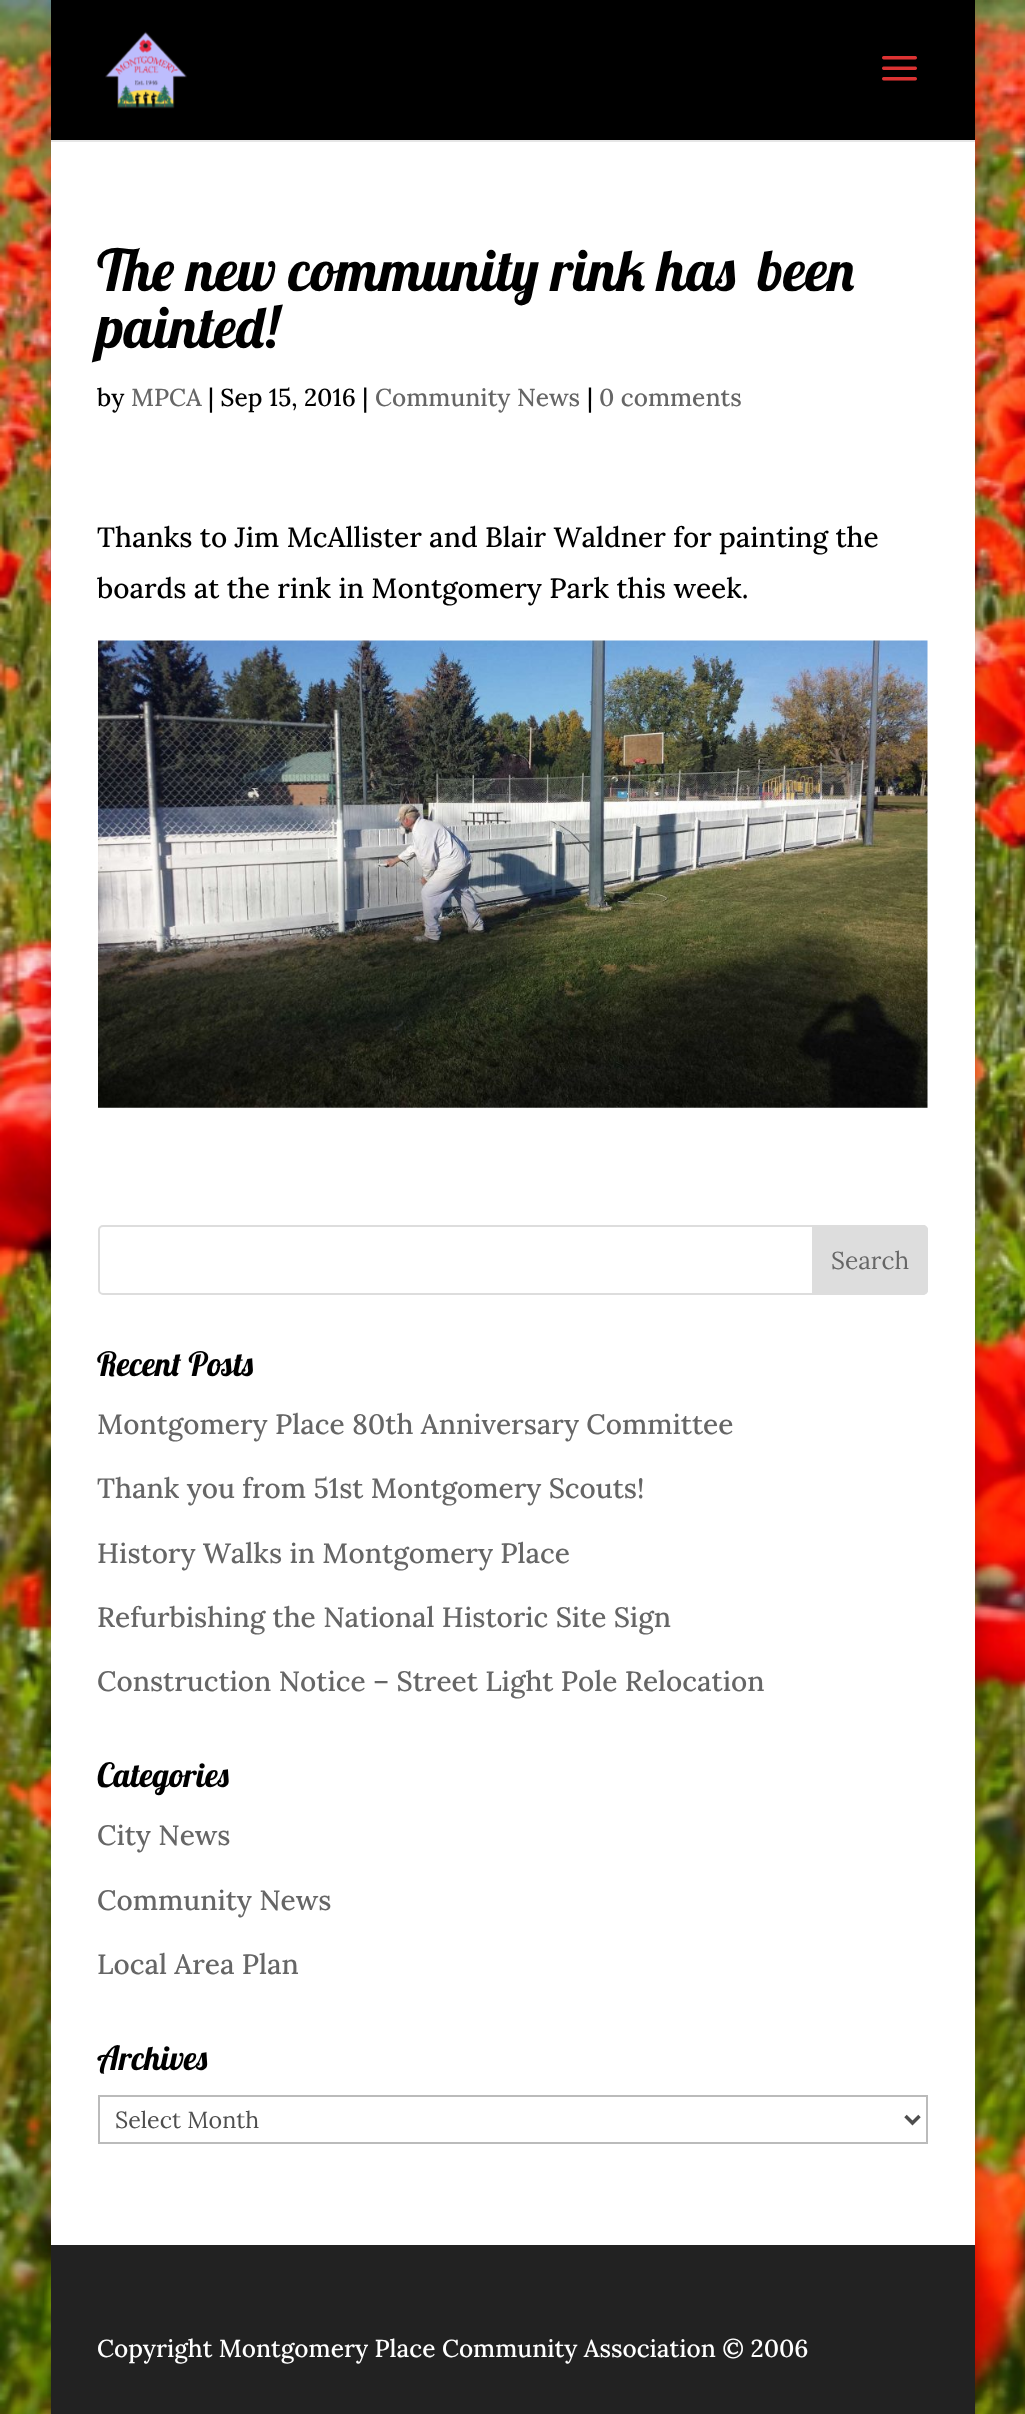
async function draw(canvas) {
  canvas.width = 1025;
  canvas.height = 2414;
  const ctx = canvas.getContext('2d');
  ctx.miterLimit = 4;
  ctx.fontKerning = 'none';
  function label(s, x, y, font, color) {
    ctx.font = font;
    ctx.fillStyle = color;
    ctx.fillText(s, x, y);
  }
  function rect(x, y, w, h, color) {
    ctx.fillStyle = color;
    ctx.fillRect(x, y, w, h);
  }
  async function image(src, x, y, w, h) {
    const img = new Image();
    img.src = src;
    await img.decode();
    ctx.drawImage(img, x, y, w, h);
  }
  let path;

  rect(0, 0, 1025, 2414, '#fff');
  await image('assets/img1.png', 0, 0, 1025, 2414);
  ctx.fillStyle = '#00000033';
  ctx.filter = 'blur(9px)';
  ctx.beginPath();
  ctx.rect(51, 0, 924, 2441);
  ctx.fill();
  ctx.filter = 'none';
  ctx.fillStyle = '#e6e6e6';
  path = new Path2D('M51 140V142H975V2V140Z');
  ctx.fill(path);
  rect(51, 0, 924, 140, '#000');
  await image('assets/img2.png', 105, 31, 82, 78);
  await image('assets/img3.png', 882, 56, 35, 25);
  rect(51, 142, 924, 2103, '#fff');
  label('The new community rink has', 97, 291, '57.75px Lobster', '#000');
  label('been', 758, 291, '57.75px Lobster', '#000');
  label('painted!', 97, 348, '57.75px Lobster', '#000');
  label('by', 97, 406, '500 24.5px Lora', '#000');
  label('MPCA', 131, 406, '500 24.5px Lora', '#666');
  label('| Sep 15, 2016 |', 208, 406, '500 24.5px Lora', '#000');
  label('Community News', 375, 406, '500 24.5px Lora', '#666');
  label('|', 587, 406, '500 24.5px Lora', '#000');
  label('0 comments', 599, 406, '500 24.5px Lora', '#666');
  label('Thanks to Jim McAllister and Blair Waldner for painting the', 97, 547, '500 28px Lora', '#000');
  label('boards at the rink in Montgomery Park this week.', 97, 598, '500 28px Lora', '#000');
  await image('assets/img4.png', 98, 640, 830, 468);
  ctx.beginPath();
  ctx.roundRect(99, 1226, 828, 68, 4);
  ctx.strokeStyle = '#ddd';
  ctx.lineWidth = 2;
  ctx.stroke();
  ctx.fillStyle = '#ddd';
  ctx.beginPath();
  ctx.roundRect(813, 1226, 114, 68, [0, 4, 4, 0]);
  ctx.fill();
  ctx.stroke();
  label('Search', 831, 1269, '24.5px Lora', '#666');
  label('Recent Posts', 97, 1376, '33.25px Lobster', '#000');
  label('Montgomery Place 80th Anniversary Committee', 97, 1434, '500 28px Lora', '#666');
  label('Thank you from 51st Montgomery Scouts!', 97, 1498, '500 28px Lora', '#666');
  label('History Walks in Montgomery Place', 97, 1563, '500 28px Lora', '#666');
  label('Refurbishing the National Historic Site Sign', 97, 1627, '500 28px Lora', '#666');
  label('Construction Notice – Street Light Pole Relocation', 97, 1691, '500 28px Lora', '#666');
  label('Categories', 97, 1787, '33.25px Lobster', '#000');
  label('City News', 97, 1845, '500 28px Lora', '#666');
  label('Community News', 97, 1910, '500 28px Lora', '#666');
  label('Local Area Plan', 97, 1974, '500 28px Lora', '#666');
  label('Archives', 97, 2070, '33.25px Lobster', '#000');
  ctx.strokeStyle = '#bbb';
  ctx.strokeRect(99, 2096, 828, 47);
  path = new Path2D('M905.5 2116L912.5 2123L919.5 2116');
  ctx.strokeStyle = '#4e4e4e';
  ctx.lineWidth = 3.5;
  ctx.stroke(path);
  label('Select Month', 115, 2128, '23.25px Lora', '#4e4e4e');
  rect(51, 2245, 924, 169, '#222');
  label('Copyright Montgomery Place Community Association © 2006', 97, 2357, '500 24.5px Lora', '#fff');
}

draw(document.querySelector('canvas'));
